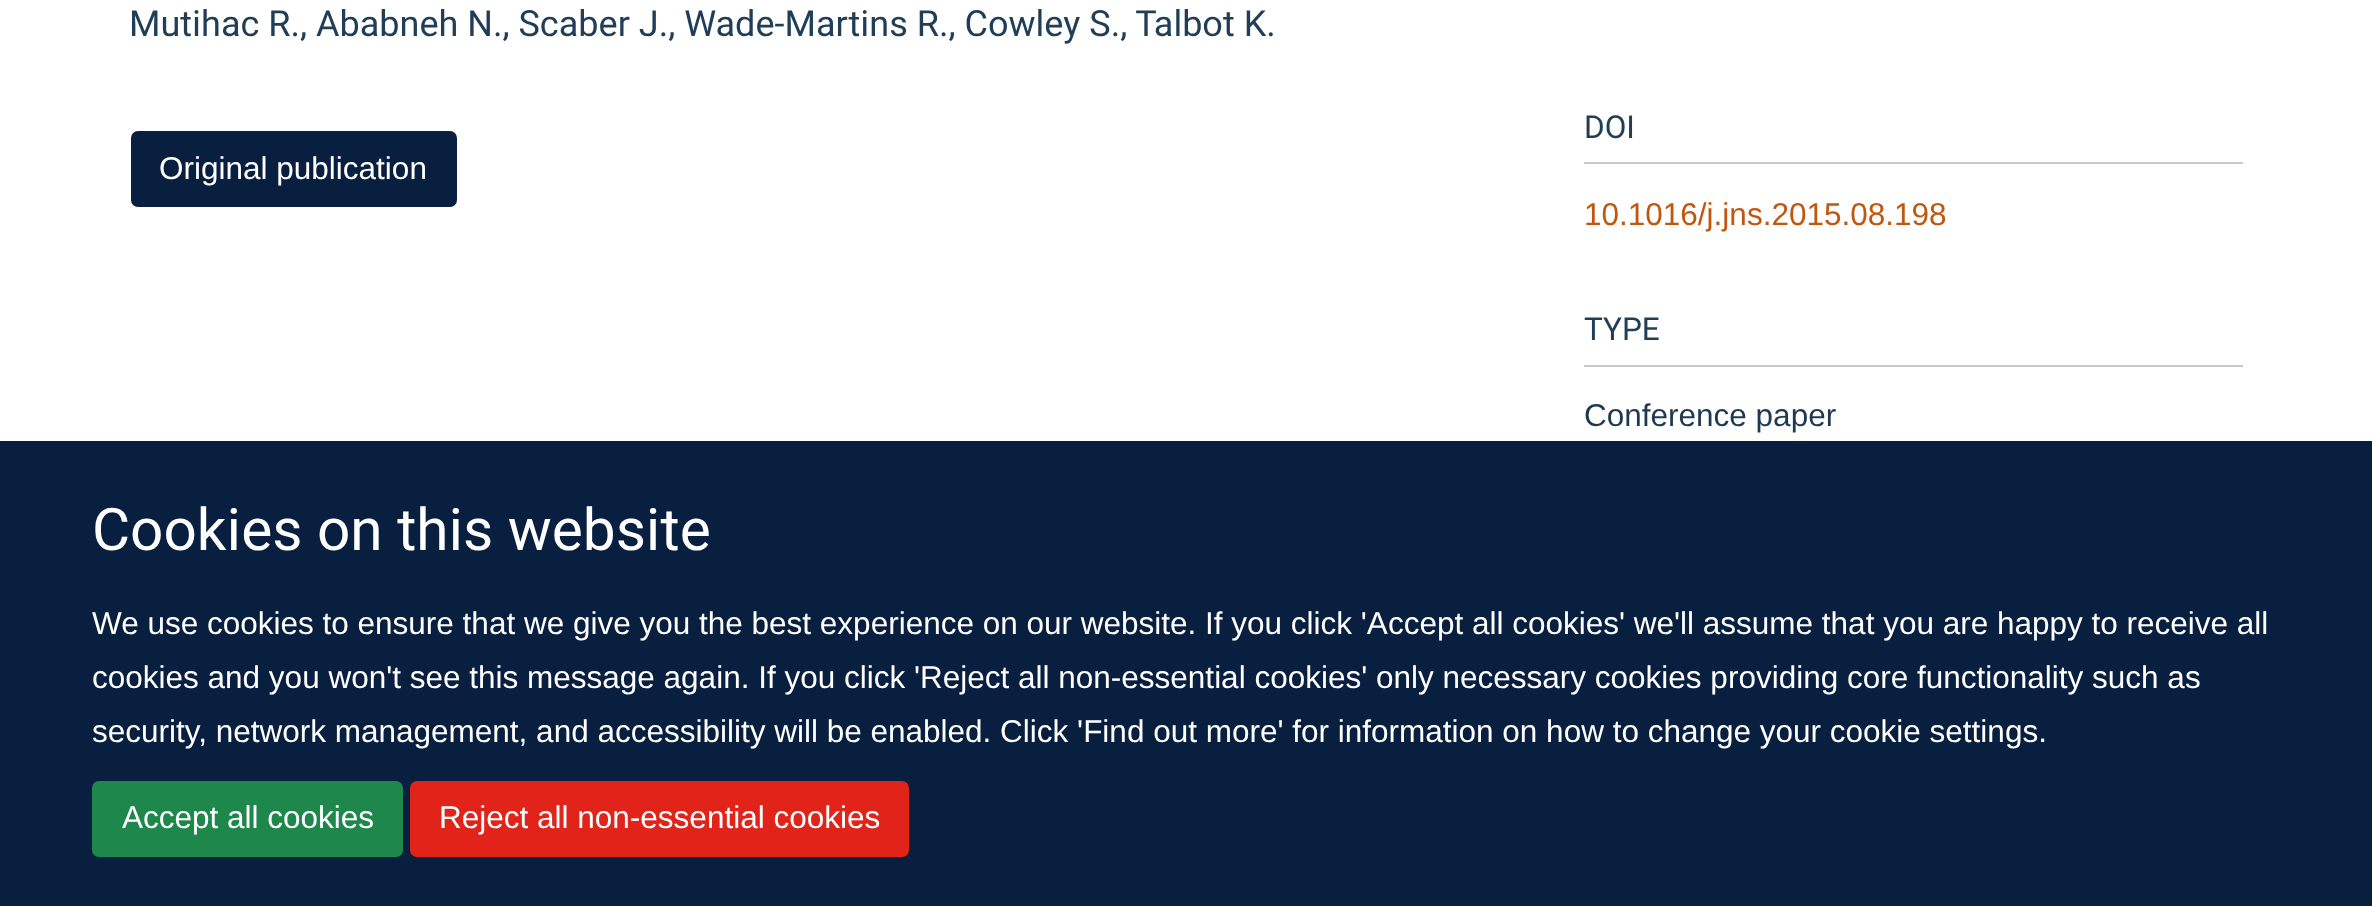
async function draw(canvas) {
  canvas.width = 2372;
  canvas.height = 906;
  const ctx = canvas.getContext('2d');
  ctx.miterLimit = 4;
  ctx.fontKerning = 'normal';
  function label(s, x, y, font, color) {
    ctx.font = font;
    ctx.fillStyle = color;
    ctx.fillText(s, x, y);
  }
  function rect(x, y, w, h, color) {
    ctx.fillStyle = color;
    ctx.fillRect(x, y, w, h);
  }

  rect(0, 0, 2372, 906, '#fff');
  label('Mutihac R., Ababneh N., Scaber J., Wade-Martins R., Cowley S., Talbot K.', 129, 36, '36px Heebo', '#203e58');
  ctx.fillStyle = '#091f40';
  ctx.beginPath();
  ctx.roundRect(132, 132, 324, 74, 6);
  ctx.fill();
  ctx.strokeStyle = '#091f40';
  ctx.lineWidth = 2;
  ctx.stroke();
  label('Original publication', 159, 179, '31.5px Liberation Sans', '#fff');
  rect(1584, 162, 659, 2, '#c6cacf');
  label('DOI', 1584, 138, '31.5px Heebo', '#203e58');
  label('10.1016/j.jns.2015.08.198', 1584, 225, '31.5px Liberation Sans', '#c1570e');
  rect(1584, 365, 659, 2, '#c6cacf');
  label('TYPE', 1584, 340, '31.5px Heebo', '#203e58');
  label('Conference paper', 1584, 426, '31.5px Liberation Sans', '#1d3850');
  rect(0, 441, 2372, 465, '#091f40');
  label('Cookies on this website', 92, 550, '58.5px Heebo', '#fff');
  label('We use cookies to ensure that we give you the best experience on our website. If you click \'Accept all cookies\' we\'ll assume that you are happy to receive all', 92, 634, '31.5px Liberation Sans', '#fff');
  label('cookies and you won\'t see this message again. If you click \'Reject all non-essential cookies\' only necessary cookies providing core functionality such as', 92, 688, '31.5px Liberation Sans', '#fff');
  label('security, network management, and accessibility will be enabled. Click \'Find out more\' for information on how to change your cookie settings.', 92, 742, '31.5px Liberation Sans', '#fff');
  ctx.fillStyle = '#1e874b';
  ctx.beginPath();
  ctx.roundRect(93, 782, 309, 74, 6);
  ctx.fill();
  ctx.strokeStyle = '#1e874b';
  ctx.stroke();
  label('Accept all cookies', 122, 828, '31.5px Liberation Sans', '#fff');
  ctx.fillStyle = '#e2231a';
  ctx.beginPath();
  ctx.roundRect(411, 782, 497, 74, 6);
  ctx.fill();
  ctx.strokeStyle = '#e2231a';
  ctx.stroke();
  label('Reject all non-essential cookies', 439, 828, '31.5px Liberation Sans', '#fff');
}

draw(document.querySelector('canvas'));
